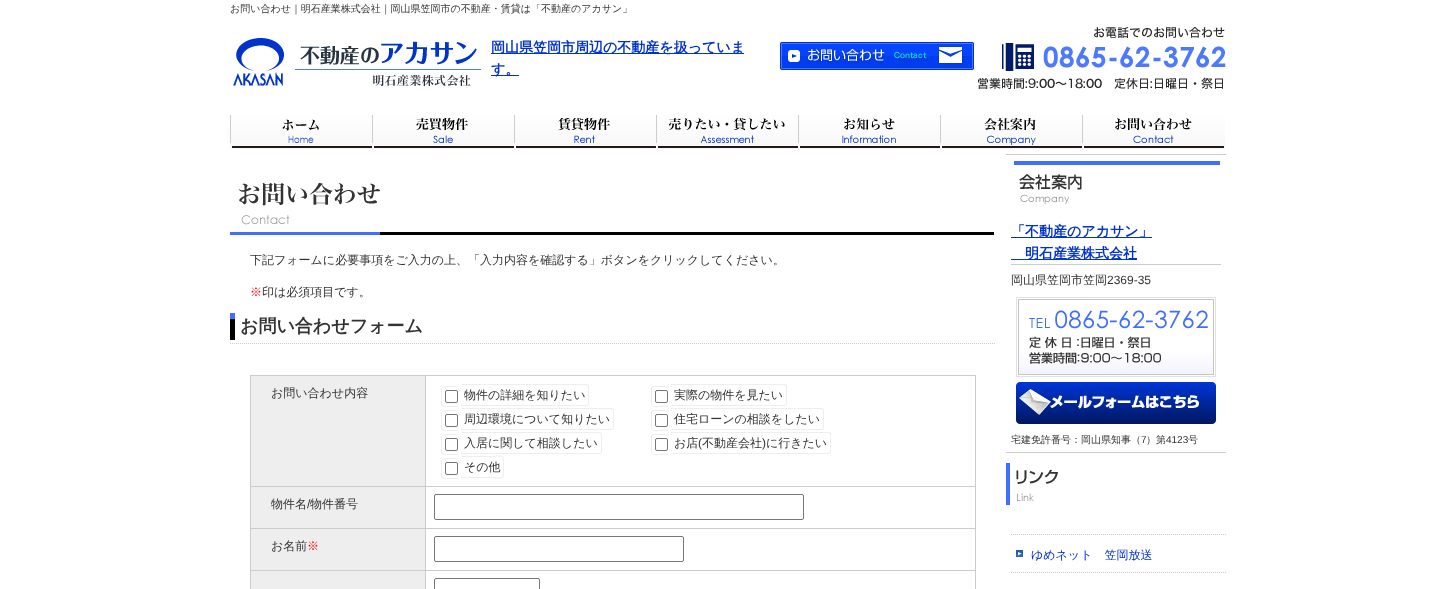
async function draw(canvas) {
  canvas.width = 1455;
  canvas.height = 589;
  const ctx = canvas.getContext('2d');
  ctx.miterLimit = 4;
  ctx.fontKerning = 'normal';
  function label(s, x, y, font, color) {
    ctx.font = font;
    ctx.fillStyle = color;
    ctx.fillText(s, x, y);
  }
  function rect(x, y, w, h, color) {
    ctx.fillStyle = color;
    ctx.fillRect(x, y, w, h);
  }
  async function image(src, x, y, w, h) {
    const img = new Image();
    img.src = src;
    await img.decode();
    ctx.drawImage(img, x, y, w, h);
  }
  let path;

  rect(0, 0, 1455, 589, '#fff');
  label('お問い合わせ｜明石産業株式会社｜岡山県笠岡市の不動産・賃貸は「不動産のアカサン」', 230, 12, '500 10px WenQuanYi Zen Hei', '#333');
  await image('assets/img1.png', 233, 38, 248, 48);
  rect(491, 53, 253, 1, '#03c');
  label('岡山県笠岡市周辺の不動産を扱っていま', 491, 52, 'bold 14px WenQuanYi Zen Hei', '#03c');
  rect(491, 75, 28, 1, '#03c');
  label('す。', 491, 74, 'bold 14px WenQuanYi Zen Hei', '#03c');
  await image('assets/img2.png', 780, 42, 194, 28);
  await image('assets/img3.png', 978, 27, 248, 62);
  await image('assets/img4.png', 230, 115, 142, 34);
  await image('assets/img5.png', 372, 115, 142, 34);
  await image('assets/img6.png', 514, 115, 142, 34);
  await image('assets/img7.png', 656, 115, 142, 34);
  await image('assets/img8.png', 798, 115, 142, 34);
  await image('assets/img9.png', 940, 115, 142, 34);
  await image('assets/img10.png', 1082, 115, 143, 34);
  await image('assets/img11.png', 230, 182, 764, 53);
  label('下記フォームに必要事項をご入力の上、「入力内容を確認する」ボタンをクリックしてください。', 250, 264, '500 12px WenQuanYi Zen Hei', '#333');
  label('※', 250, 296, '500 12px WenQuanYi Zen Hei', '#f00');
  label('印は必須項目です。', 262, 296, '500 12px WenQuanYi Zen Hei', '#333');
  path = new Path2D('M230 343.5H996');
  ctx.strokeStyle = '#ccc';
  ctx.setLineDash([1, 1]);
  ctx.stroke(path);
  await image('assets/img12.png', 230, 313, 5, 27);
  label('お問い合わせフォーム', 240, 332, 'bold 18px WenQuanYi Zen Hei', '#333');
  rect(250, 375, 726, 1, '#ccc');
  rect(975, 375, 1, 214, '#ccc');
  rect(251, 376, 174, 110, '#eee');
  rect(425, 570, 1, 19, '#ccc');
  rect(425, 570, 551, 1, '#ccc');
  rect(425, 528, 1, 43, '#ccc');
  rect(425, 528, 551, 1, '#ccc');
  rect(425, 486, 1, 43, '#ccc');
  rect(425, 486, 551, 1, '#ccc');
  rect(425, 375, 1, 112, '#ccc');
  rect(250, 570, 1, 19, '#ccc');
  rect(250, 570, 176, 1, '#ccc');
  rect(250, 528, 1, 43, '#ccc');
  rect(250, 528, 176, 1, '#ccc');
  rect(250, 486, 1, 43, '#ccc');
  rect(250, 486, 176, 1, '#ccc');
  rect(250, 375, 1, 112, '#ccc');
  label('お問い合わせ内容', 271, 397, '500 12px WenQuanYi Zen Hei', '#333');
  ctx.fillStyle = '#eee';
  path = new Path2D('M444 386H458V407H444C442.5 407 441 405.5 441 404V389C441 387.5 442.5 386 444 386ZM444 387H458V406H444C443 406 442 405 442 404V389C442 388 443 387 444 387Z');
  ctx.fill(path, 'evenodd');
  path = new Path2D('M461 384H586C588 384 589 385 589 387V403C589 405 588 406 586 406H461ZM461 385H586C587 385 588 386 588 387V403C588 404 587 405 586 405H461Z');
  ctx.fill(path, 'evenodd');
  ctx.beginPath();
  ctx.roundRect(445.5, 390.5, 12, 12, 1.5);
  ctx.strokeStyle = '#767676';
  ctx.setLineDash([]);
  ctx.stroke();
  label('物件の詳細を知りたい', 464, 399, '500 12px WenQuanYi Zen Hei', '#333');
  ctx.fillStyle = '#eee';
  path = new Path2D('M654 386H668V407H654C652.5 407 651 405.5 651 404V389C651 387.5 652.5 386 654 386ZM654 387H668V406H654C653 406 652 405 652 404V389C652 388 653 387 654 387Z');
  ctx.fill(path, 'evenodd');
  path = new Path2D('M671 384H784C786 384 787 385 787 387V403C787 405 786 406 784 406H671ZM671 385H784C785 385 786 386 786 387V403C786 404 785 405 784 405H671Z');
  ctx.fill(path, 'evenodd');
  ctx.beginPath();
  ctx.roundRect(655.5, 390.5, 12, 12, 1.5);
  ctx.stroke();
  label('実際の物件を見たい', 674, 399, '500 12px WenQuanYi Zen Hei', '#333');
  ctx.fillStyle = '#eee';
  path = new Path2D('M444 410H458V431H444C442.5 431 441 429.5 441 428V413C441 411.5 442.5 410 444 410ZM444 411H458V430H444C443 430 442 429 442 428V413C442 412 443 411 444 411Z');
  ctx.fill(path, 'evenodd');
  path = new Path2D('M461 408H611C613 408 614 409 614 411V427C614 429 613 430 611 430H461ZM461 409H611C612 409 613 410 613 411V427C613 428 612 429 611 429H461Z');
  ctx.fill(path, 'evenodd');
  ctx.beginPath();
  ctx.roundRect(445.5, 414.5, 12, 12, 1.5);
  ctx.stroke();
  label('周辺環境について知りたい', 464, 423, '500 12px WenQuanYi Zen Hei', '#333');
  ctx.fillStyle = '#eee';
  path = new Path2D('M654 410H668V431H654C652.5 431 651 429.5 651 428V413C651 411.5 652.5 410 654 410ZM654 411H668V430H654C653 430 652 429 652 428V413C652 412 653 411 654 411Z');
  ctx.fill(path, 'evenodd');
  path = new Path2D('M671 408H821C823 408 824 409 824 411V427C824 429 823 430 821 430H671ZM671 409H821C822 409 823 410 823 411V427C823 428 822 429 821 429H671Z');
  ctx.fill(path, 'evenodd');
  ctx.beginPath();
  ctx.roundRect(655.5, 414.5, 12, 12, 1.5);
  ctx.stroke();
  label('住宅ローンの相談をしたい', 674, 423, '500 12px WenQuanYi Zen Hei', '#333');
  ctx.fillStyle = '#eee';
  path = new Path2D('M444 434H458V455H444C442.5 455 441 453.5 441 452V437C441 435.5 442.5 434 444 434ZM444 435H458V454H444C443 454 442 453 442 452V437C442 436 443 435 444 435Z');
  ctx.fill(path, 'evenodd');
  path = new Path2D('M461 432H599C601 432 602 433 602 435V451C602 453 601 454 599 454H461ZM461 433H599C600 433 601 434 601 435V451C601 452 600 453 599 453H461Z');
  ctx.fill(path, 'evenodd');
  ctx.beginPath();
  ctx.roundRect(445.5, 438.5, 12, 12, 1.5);
  ctx.stroke();
  label('入居に関して相談したい', 464, 447, '500 12px WenQuanYi Zen Hei', '#333');
  ctx.fillStyle = '#eee';
  path = new Path2D('M654 434H668V455H654C652.5 455 651 453.5 651 452V437C651 435.5 652.5 434 654 434ZM654 435H668V454H654C653 454 652 453 652 452V437C652 436 653 435 654 435Z');
  ctx.fill(path, 'evenodd');
  path = new Path2D('M671 432H828C830 432 831 433 831 435V451C831 453 830 454 828 454H671ZM671 433H828C829 433 830 434 830 435V451C830 452 829 453 828 453H671Z');
  ctx.fill(path, 'evenodd');
  ctx.beginPath();
  ctx.roundRect(655.5, 438.5, 12, 12, 1.5);
  ctx.stroke();
  label('お店', 674, 447, '500 12px WenQuanYi Zen Hei', '#333');
  label('(', 698, 447, '12px Liberation Sans', '#333');
  label('不動産会社', 702, 447, '500 12px WenQuanYi Zen Hei', '#333');
  label(')', 762, 447, '12px Liberation Sans', '#333');
  label('に行きたい', 766, 447, '500 12px WenQuanYi Zen Hei', '#333');
  ctx.fillStyle = '#eee';
  path = new Path2D('M444 458H458V479H444C442.5 479 441 477.5 441 476V461C441 459.5 442.5 458 444 458ZM444 459H458V478H444C443 478 442 477 442 476V461C442 460 443 459 444 459ZM461 456H488C504 456 504 452 504 467C504 482 504 478 488 478H461ZM461 457H488C504 457 503 453 503 467C503 481 504 477 488 477H461Z');
  ctx.fill(path, 'evenodd');
  ctx.beginPath();
  ctx.roundRect(445.5, 462.5, 12, 12, 1.5);
  ctx.stroke();
  label('その他', 464, 471, '500 12px WenQuanYi Zen Hei', '#333');
  rect(251, 487, 174, 41, '#eee');
  label('物件名', 271, 508, '500 12px WenQuanYi Zen Hei', '#333');
  label('/', 307, 508, '12px Liberation Sans', '#333');
  label('物件番号', 310, 508, '500 12px WenQuanYi Zen Hei', '#333');
  ctx.beginPath();
  ctx.roundRect(434.5, 494.5, 369, 25, 1.5);
  ctx.stroke();
  rect(251, 529, 174, 41, '#eee');
  label('お名前', 271, 550, '500 12px WenQuanYi Zen Hei', '#333');
  label('※', 307, 550, '500 12px WenQuanYi Zen Hei', '#f00');
  ctx.beginPath();
  ctx.roundRect(434.5, 536.5, 249, 25, 1.5);
  ctx.stroke();
  rect(251, 571, 174, 18, '#eee');
  ctx.beginPath();
  ctx.roundRect(434.5, 578.5, 105, 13, 1.5);
  ctx.stroke();
  rect(1006, 154, 220, 1, '#ccc');
  rect(1006, 452, 220, 1, '#ccc');
  await image('assets/img13.png', 1014, 161, 206, 43);
  rect(1011, 264, 210, 1, '#ccc');
  rect(1011, 237, 141, 1, '#03c');
  label('「不動産のアカサン」', 1011, 236, 'bold 14px WenQuanYi Zen Hei', '#03c');
  rect(1011, 259, 126, 1, '#03c');
  label('明石産業株式会社', 1025, 258, 'bold 14px WenQuanYi Zen Hei', '#03c');
  label('岡山県笠岡市笠岡', 1011, 284, '500 12px WenQuanYi Zen Hei', '#333');
  label('2369-35', 1107, 284, '12px Liberation Sans', '#333');
  await image('assets/img14.png', 1016, 297, 200, 80);
  await image('assets/img15.png', 1016, 382, 200, 42);
  label('宅建免許番号：岡山県知事（', 1011, 443, '500 10px WenQuanYi Zen Hei', '#333');
  label('7', 1141, 443, '10px Liberation Sans', '#333');
  label('）第', 1146, 443, '500 10px WenQuanYi Zen Hei', '#333');
  label('4123', 1166, 443, '10px Liberation Sans', '#333');
  label('号', 1188, 443, '500 10px WenQuanYi Zen Hei', '#333');
  await image('assets/img16.png', 1006, 463, 52, 42);
  path = new Path2D('M1011 534.5H1226');
  ctx.strokeStyle = '#ccc';
  ctx.setLineDash([1, 1]);
  ctx.stroke(path);
  path = new Path2D('M1011 572.5H1226');
  ctx.stroke(path);
  await image('assets/img17.png', 1016, 550, 7, 7);
  label('ゆめネット　笠岡放送', 1031, 559, '500 12px WenQuanYi Zen Hei', '#03c');
}

draw(document.querySelector('canvas'));
